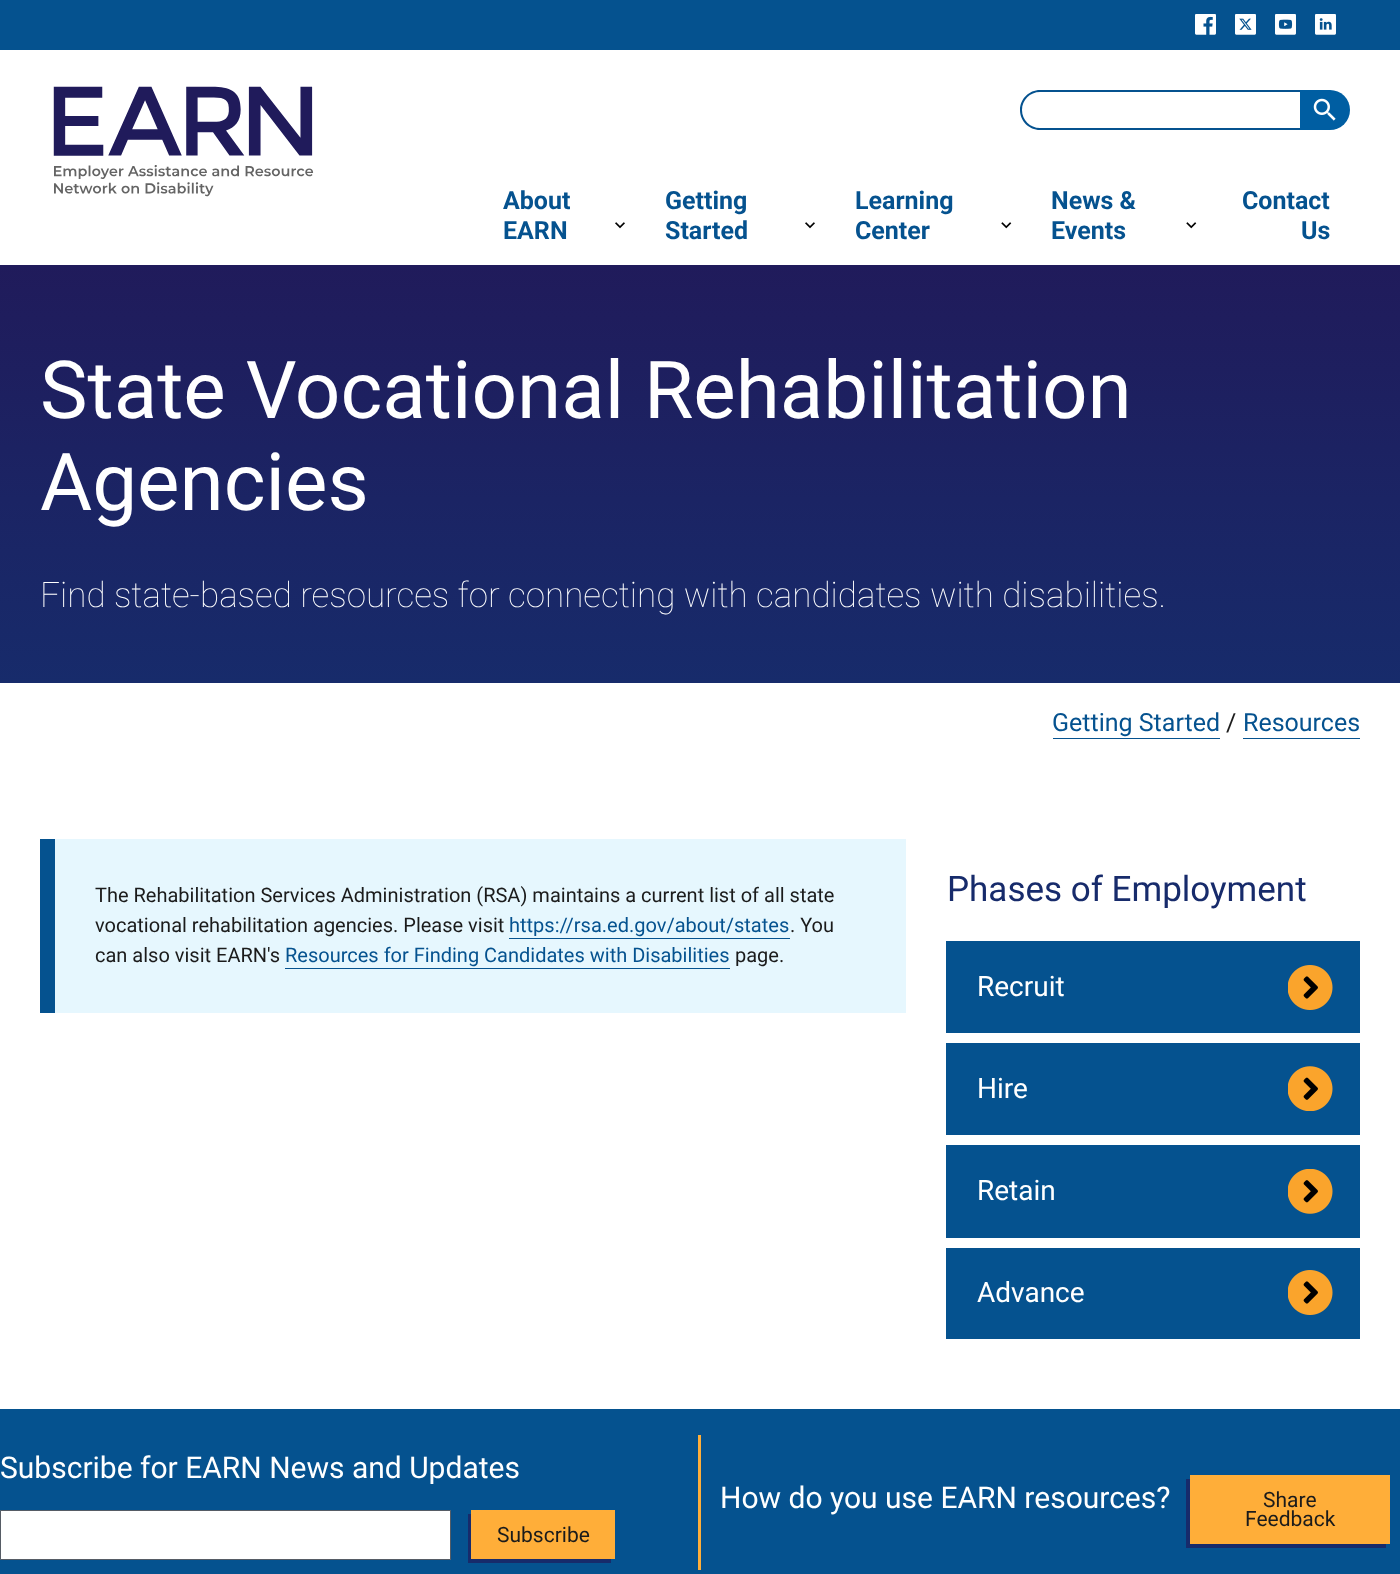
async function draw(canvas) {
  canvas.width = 1400;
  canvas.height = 1574;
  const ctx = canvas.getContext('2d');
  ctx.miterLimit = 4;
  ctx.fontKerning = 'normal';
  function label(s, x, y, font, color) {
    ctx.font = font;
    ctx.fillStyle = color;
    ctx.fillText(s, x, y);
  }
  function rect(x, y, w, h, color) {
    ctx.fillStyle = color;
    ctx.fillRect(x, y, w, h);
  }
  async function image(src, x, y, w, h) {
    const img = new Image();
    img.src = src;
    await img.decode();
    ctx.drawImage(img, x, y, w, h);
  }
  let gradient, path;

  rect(0, 0, 1400, 1574, '#fff');
  rect(0, 0, 1400, 50, '#05528f');
  await image('assets/img1.png', 1195, 14, 21, 21);
  await image('assets/img2.png', 1235, 14, 21, 21);
  await image('assets/img3.png', 1275, 14, 21, 21);
  await image('assets/img4.png', 1315, 14, 21, 21);
  await image('assets/img5.png', 53, 86, 261, 111);
  path = new Path2D('M1040 90H1300V130H1040C1029 130 1020 121 1020 110C1020 99 1029 90 1040 90ZM1040 92H1300V128H1040C1030 128 1022 120 1022 110C1022 100 1030 92 1040 92Z');
  ctx.fill(path, 'evenodd');
  ctx.fillStyle = '#005ea2';
  ctx.beginPath();
  ctx.roundRect(1300, 90, 50, 40, [0, 20, 20, 0]);
  ctx.fill();
  await image('assets/img6.png', 1313, 98, 23, 23);
  label('About', 503, 209, 'bold 25px Roboto', '#05528f');
  label('EARN', 503, 239, 'bold 25px Roboto', '#05528f');
  await image('assets/img7.png', 615, 222, 10, 7);
  label('Getting', 665, 209, 'bold 25px Roboto', '#05528f');
  label('Started', 665, 239, 'bold 25px Roboto', '#05528f');
  await image('assets/img7.png', 805, 222, 10, 7);
  label('Learning', 855, 209, 'bold 25px Roboto', '#05528f');
  label('Center', 855, 239, 'bold 25px Roboto', '#05528f');
  await image('assets/img8.png', 1001, 222, 11, 7);
  label('News &', 1051, 209, 'bold 25px Roboto', '#05528f');
  label('Events', 1051, 239, 'bold 25px Roboto', '#05528f');
  await image('assets/img8.png', 1186, 222, 11, 7);
  label('Contact', 1242, 209, 'bold 25px Roboto', '#05528f');
  label('Us', 1301, 239, 'bold 25px Roboto', '#05528f');
  gradient = ctx.createLinearGradient(700, 265, 700, 683);
  gradient.addColorStop(0, '#201b5b');
  gradient.addColorStop(1, '#172b6b');
  ctx.fillStyle = gradient;
  ctx.fillRect(0, 265, 1400, 418);
  label('State Vocational Rehabilitation', 40, 418, '80px Roboto', '#fff');
  label('Agencies', 40, 510, '80px Roboto', '#fff');
  label('Find state-based resources for connecting with candidates with disabilities.', 40, 607, '100 35px Roboto', '#fff');
  label('Getting Started', 1052, 731, '25px Roboto', '#05528f');
  rect(1053, 738, 167, 1, '#05528f');
  label('/', 1226, 731, '25px Roboto', '#1b1b1b');
  label('Resources', 1243, 731, '25px Roboto', '#05528f');
  rect(1243, 738, 117, 1, '#05528f');
  rect(55, 839, 851, 174, '#e6f7fe');
  rect(40, 839, 15, 174, '#05528f');
  label('The Rehabilitation Services Administration (RSA) maintains a current list of all state', 95, 902, '20px Roboto', '#1b1b1b');
  label('vocational rehabilitation agencies. Please visit', 95, 932, '20px Roboto', '#1b1b1b');
  label('https://rsa.ed.gov/about/states', 509, 932, '20px Roboto', '#05528f');
  rect(509, 938, 281, 1, '#05528f');
  label('. You', 790, 932, '20px Roboto', '#1b1b1b');
  label('can also visit EARN\'s', 95, 962, '20px Roboto', '#1b1b1b');
  label('Resources for Finding Candidates with Disabilities', 285, 962, '20px Roboto', '#05528f');
  rect(285, 968, 445, 1, '#05528f');
  label('page.', 735, 962, '20px Roboto', '#1b1b1b');
  label('Phases of Employment', 947, 901, '35px Roboto', '#172b6b');
  rect(946, 941, 414, 92, '#05528f');
  await image('assets/img9.png', 1288, 965, 45, 45);
  label('Recruit', 977, 996, '28px Roboto', '#fff');
  rect(946, 1043, 414, 92, '#05528f');
  await image('assets/img10.png', 1288, 1066, 45, 45);
  label('Hire', 977, 1098, '28px Roboto', '#fff');
  rect(946, 1145, 414, 93, '#05528f');
  await image('assets/img11.png', 1288, 1169, 45, 45);
  label('Retain', 977, 1200, '28px Roboto', '#fff');
  rect(946, 1248, 414, 91, '#05528f');
  await image('assets/img9.png', 1288, 1270, 45, 45);
  label('Advance', 977, 1302, '28px Roboto', '#fff');
  rect(0, 1409, 1400, 165, '#05528f');
  rect(698, 1435, 3, 135, '#ffae39');
  label('Subscribe for EARN News and Updates', 0, 1478, '30px Roboto', '#fff');
  ctx.beginPath();
  ctx.rect(0.5, 1510.5, 450, 49);
  ctx.fill();
  ctx.strokeStyle = '#565c65';
  ctx.stroke();
  ctx.fillStyle = '#172b6b';
  path = new Path2D('M468 1514V1563H611V1559H471V1514Z');
  ctx.fill(path);
  rect(471, 1510, 144, 49, '#ffae39');
  label('Subscribe', 497, 1542, '21px Roboto', '#1b1b1b');
  label('How do you use EARN resources?', 720, 1508, '30px Roboto', '#fff');
  ctx.fillStyle = '#172b6b';
  path = new Path2D('M1186 1479V1548H1386V1544H1190V1479Z');
  ctx.fill(path);
  rect(1190, 1475, 200, 69, '#ffae39');
  label('Share', 1263, 1507, '21px Roboto', '#1b1b1b');
  label('Feedback', 1245, 1526, '21px Roboto', '#1b1b1b');
}

draw(document.querySelector('canvas'));
